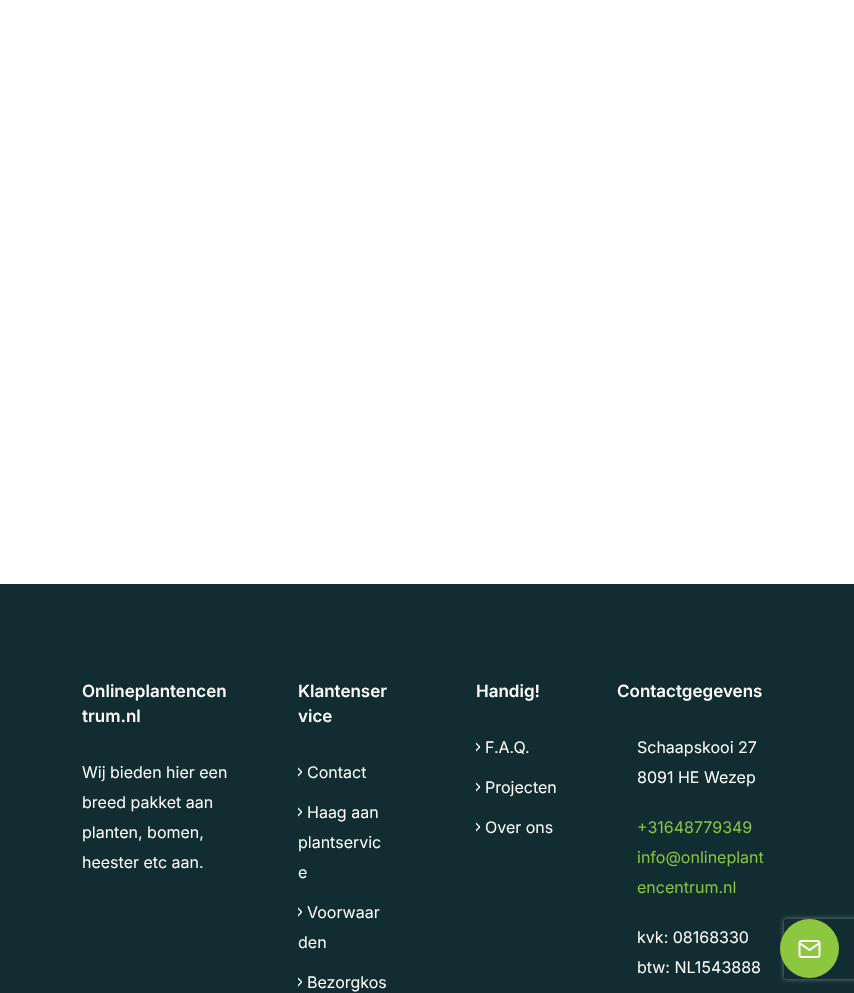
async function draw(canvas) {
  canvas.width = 854;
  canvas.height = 993;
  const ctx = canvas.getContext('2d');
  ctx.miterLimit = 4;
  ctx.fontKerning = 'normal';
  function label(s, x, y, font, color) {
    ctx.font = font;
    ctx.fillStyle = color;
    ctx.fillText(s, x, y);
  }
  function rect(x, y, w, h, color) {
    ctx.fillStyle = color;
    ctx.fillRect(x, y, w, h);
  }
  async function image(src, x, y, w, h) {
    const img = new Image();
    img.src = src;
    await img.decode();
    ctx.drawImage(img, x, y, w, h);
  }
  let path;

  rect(0, 0, 854, 993, '#fff');
  rect(0, 584, 854, 409, '#112d32');
  label('Onlineplantencen', 82, 697, '600 17px Inter', '#fff');
  label('trum.nl', 82, 722, '600 17px Inter', '#fff');
  label('Wij bieden hier een', 82, 778, '16px Inter', '#fff');
  label('breed pakket aan', 82, 808, '16px Inter', '#fff');
  label('planten, bomen,', 82, 838, '16px Inter', '#fff');
  label('heester etc aan.', 82, 868, '16px Inter', '#fff');
  label('Klantenser', 298, 697, '600 17px Inter', '#fff');
  label('vice', 298, 722, '600 17px Inter', '#fff');
  await image('assets/img1.png', 298, 767, 4, 10);
  label('Contact', 307, 778, '16px Inter', '#fff');
  await image('assets/img1.png', 298, 807, 4, 10);
  label('Haag aan', 307, 818, '16px Inter', '#fff');
  label('plantservic', 298, 848, '16px Inter', '#fff');
  label('e', 298, 878, '16px Inter', '#fff');
  await image('assets/img1.png', 298, 907, 4, 10);
  label('Voorwaar', 307, 918, '16px Inter', '#fff');
  label('den', 298, 948, '16px Inter', '#fff');
  await image('assets/img1.png', 298, 977, 4, 10);
  label('Bezorgkos', 307, 988, '16px Inter', '#fff');
  label('Handig!', 476, 697, '600 17px Inter', '#fff');
  await image('assets/img1.png', 476, 742, 4, 10);
  label('F.A.Q.', 485, 753, '16px Inter', '#fff');
  await image('assets/img1.png', 476, 782, 4, 10);
  label('Projecten', 485, 793, '16px Inter', '#fff');
  await image('assets/img1.png', 476, 822, 4, 10);
  label('Over ons', 485, 833, '16px Inter', '#fff');
  label('Contactgegevens', 617, 697, '600 17px Inter', '#fff');
  label('Schaapskooi 27', 637, 753, '16px Inter', '#fff');
  label('8091 HE Wezep', 637, 783, '16px Inter', '#fff');
  label('+31648779349', 637, 833, '16px Inter', '#8dc63f');
  label('info@onlineplant', 637, 863, '16px Inter', '#8dc63f');
  label('encentrum.nl', 637, 893, '16px Inter', '#8dc63f');
  label('kvk: 08168330', 637, 943, '16px Inter', '#fff');
  label('btw: NL1543888', 637, 973, '16px Inter', '#fff');
  ctx.save();
  path = new Path2D('M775 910H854V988H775ZM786 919H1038C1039 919 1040 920 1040 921V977C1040 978 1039 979 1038 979H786C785 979 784 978 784 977V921C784 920 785 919 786 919Z');
  ctx.clip(path, 'evenodd');
  ctx.fillStyle = '#808080';
  ctx.filter = 'blur(2.5px)';
  ctx.beginPath();
  ctx.roundRect(784, 919, 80, 60, 2);
  ctx.fill();
  ctx.filter = 'none';
  ctx.restore();
  ctx.fillStyle = '#8dc63f';
  ctx.beginPath();
  ctx.arc(809.5, 948.5, 29.5, 0, 2 * Math.PI);
  ctx.fill();
  await image('assets/img2.png', 798, 940, 23, 18);
}

draw(document.querySelector('canvas'));
